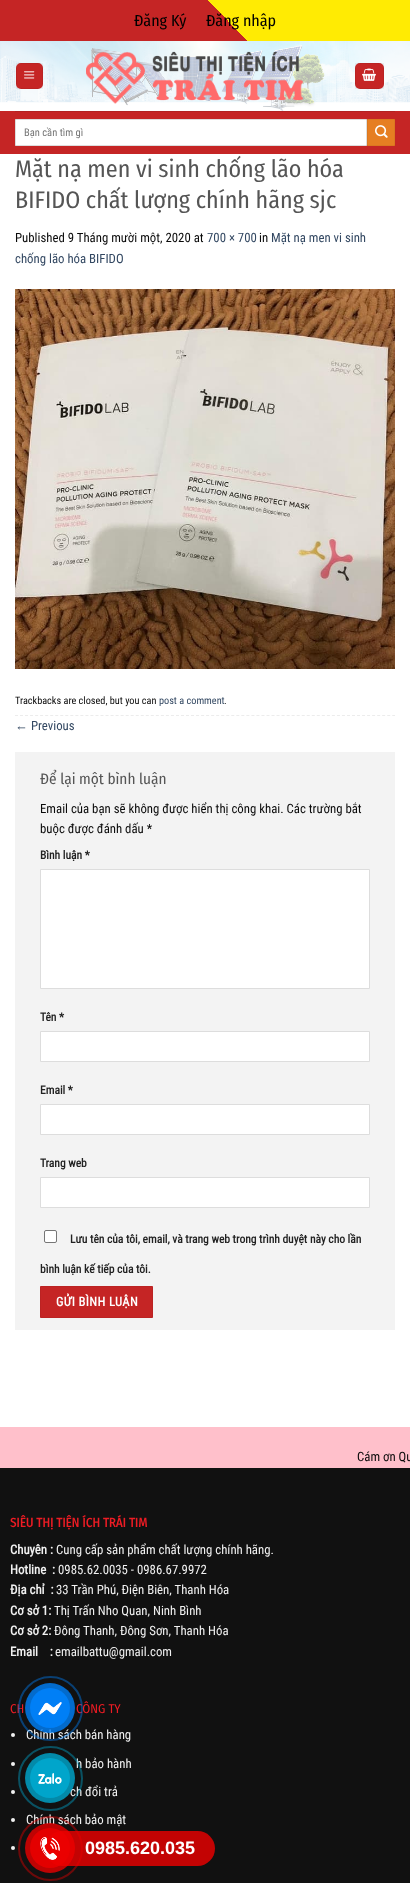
async function draw(canvas) {
  canvas.width = 410;
  canvas.height = 1883;
  const ctx = canvas.getContext('2d');
  ctx.miterLimit = 4;
  ctx.fontKerning = 'normal';
  function label(s, x, y, font, color) {
    ctx.font = font;
    ctx.fillStyle = color;
    ctx.fillText(s, x, y);
  }
  function rect(x, y, w, h, color) {
    ctx.fillStyle = color;
    ctx.fillRect(x, y, w, h);
  }
  function roundedRect(x, y, w, h, r, color) {
    ctx.fillStyle = color;
    ctx.beginPath();
    ctx.roundRect(x, y, w, h, r);
    ctx.fill();
  }
  async function image(src, x, y, w, h) {
    const img = new Image();
    img.src = src;
    await img.decode();
    ctx.drawImage(img, x, y, w, h);
  }
  let gradient, path;

  rect(0, 0, 410, 1883, '#fff');
  gradient = ctx.createLinearGradient(92, 133, 318, -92);
  gradient.addColorStop(0.55, '#c52525');
  gradient.addColorStop(0.55, '#ffeb03');
  ctx.fillStyle = gradient;
  ctx.fillRect(0, 0, 410, 41);
  label('Đăng Ký', 134, 26, '16px Fira Sans Condensed', '#000');
  label('Đăng nhập', 206, 26, '16px Fira Sans Condensed', '#000');
  await image('assets/img1.png', 0, 41, 410, 70);
  roundedRect(16, 63, 27, 26, 5, '#c52525');
  ctx.strokeStyle = '#0000000d';
  ctx.strokeRect(16.5, 63.5, 26, 25);
  await image('assets/img2.png', 24, 71, 11, 8);
  await image('assets/img3.png', 86, 51, 217, 53);
  roundedRect(355, 63, 29, 26, 5, '#c52525');
  ctx.strokeRect(355.5, 63.5, 28, 25);
  await image('assets/img4.png', 362, 68, 14, 13);
  rect(0, 111, 410, 43, '#c52525');
  rect(15, 111, 380, 1, '#b22222');
  ctx.fillStyle = '#fff';
  ctx.beginPath();
  ctx.rect(15.5, 119.5, 351, 26);
  ctx.fill();
  ctx.strokeStyle = '#ddd';
  ctx.stroke();
  label('Bạn cần tìm gì', 24, 136, '10.5px Roboto Condensed', '#757575');
  ctx.fillStyle = '#e67e22';
  ctx.beginPath();
  ctx.rect(367.5, 119.5, 27, 26);
  ctx.fill();
  ctx.strokeStyle = '#db7820';
  ctx.stroke();
  await image('assets/img5.png', 375, 125, 13, 13);
  label('Mặt nạ men vi sinh chống lão hóa', 15, 177, '24px Fira Sans Condensed', '#555');
  label('BIFIDO chất lượng chính hãng sjc', 15, 208, '24px Fira Sans Condensed', '#555');
  label('Published 9 Tháng mười một, 2020 at', 15, 242, '12.8px Roboto Condensed', '#0a0a0a');
  label('700 × 700', 207, 242, '12.8px Roboto Condensed', '#334862');
  label('in', 259, 242, '12.8px Roboto Condensed', '#0a0a0a');
  label('Mặt nạ men vi sinh', 271, 242, '12.8px Roboto Condensed', '#334862');
  label('chống lão hóa BIFIDO', 15, 263, '12.8px Roboto Condensed', '#334862');
  await image('assets/img6.png', 15, 289, 380, 380);
  path = new Path2D('M15 715.5H395');
  ctx.strokeStyle = '#ececec';
  ctx.setLineDash([3, 2.03]);
  ctx.stroke(path);
  label('Trackbacks are closed, but you can', 15, 704, '10.25px Roboto Condensed', '#0a0a0a');
  label('post a comment', 159, 704, '10.25px Roboto Condensed', '#334862');
  label('.', 224, 704, '10.25px Roboto Condensed', '#0a0a0a');
  label('←', 15, 730, '12.8px Liberation Sans', '#334862');
  label('Previous', 31, 730, '12.8px Roboto Condensed', '#334862');
  rect(15, 752, 380, 578, '#f3f3f3');
  label('Để lại một bình luận', 40, 784, '15.25px Fira Sans Condensed', '#555');
  label('Email của bạn sẽ không được hiển thị công khai. Các trường bắt', 40, 813, '12.8px Roboto Condensed', '#0a0a0a');
  label('buộc được đánh dấu *', 40, 833, '12.8px Roboto Condensed', '#0a0a0a');
  label('Bình luận *', 40, 859, 'bold 11.5px Roboto Condensed', '#222');
  ctx.fillStyle = '#fff';
  ctx.beginPath();
  ctx.rect(40.5, 869.5, 329, 119);
  ctx.fill();
  ctx.strokeStyle = '#ddd';
  ctx.setLineDash([]);
  ctx.stroke();
  label('Tên *', 40, 1021, 'bold 11.5px Roboto Condensed', '#222');
  ctx.fillStyle = '#fff';
  ctx.beginPath();
  ctx.rect(40.5, 1031.5, 329, 30);
  ctx.fill();
  ctx.stroke();
  label('Email *', 40, 1094, 'bold 11.5px Roboto Condensed', '#222');
  ctx.fillStyle = '#fff';
  ctx.beginPath();
  ctx.rect(40.5, 1104.5, 329, 30);
  ctx.fill();
  ctx.stroke();
  label('Trang web', 40, 1167, 'bold 11.5px Roboto Condensed', '#222');
  ctx.fillStyle = '#fff';
  ctx.beginPath();
  ctx.rect(40.5, 1177.5, 329, 30);
  ctx.fill();
  ctx.stroke();
  ctx.beginPath();
  ctx.roundRect(44.5, 1230.5, 12, 12, 1.5);
  ctx.fill();
  ctx.strokeStyle = '#767676';
  ctx.stroke();
  label('Lưu tên của tôi, email, và trang web trong trình duyệt này cho lần', 70, 1243, 'bold 11.5px Roboto Condensed', '#222');
  label('bình luận kế tiếp của tôi.', 40, 1273, 'bold 11.5px Roboto Condensed', '#222');
  ctx.fillStyle = '#c52525';
  ctx.beginPath();
  ctx.rect(40.5, 1286.5, 112, 31);
  ctx.fill();
  ctx.strokeStyle = '#bb2323';
  ctx.stroke();
  ctx.letterSpacing = '0.4px';
  label('GỬI BÌNH LUẬN', 56, 1306, 'bold 12.5px Roboto Condensed', '#fff');
  rect(0, 1427, 410, 41, '#ffc0cb');
  ctx.letterSpacing = '0px';
  label('Cám ơn Qu', 357, 1461, '12.8px Roboto Condensed', '#0a0a0a');
  rect(0, 1468, 410, 415, '#111');
  label('SIÊU THỊ TIỆN ÍCH TRÁI TIM', 10, 1527, 'bold 12.8px Fira Sans Condensed', '#ed1c24');
  label('Chuyên :', 10, 1554, 'bold 12.8px Roboto Condensed', '#f1f1f1');
  label('Cung cấp sản phẩm chất lượng chính hãng.', 56, 1554, '12.8px Roboto Condensed', '#f1f1f1');
  label('Hotline  :', 10, 1574, 'bold 12.8px Roboto Condensed', '#f1f1f1');
  label('0985.62.0035 - 0986.67.9972', 58, 1574, '12.8px Roboto Condensed', '#f1f1f1');
  label('Địa chỉ  :', 10, 1594, 'bold 12.8px Roboto Condensed', '#f1f1f1');
  label('33 Trần Phú, Điện Biên, Thanh Hóa', 56, 1594, '12.8px Roboto Condensed', '#f1f1f1');
  label('Cơ sở 1:', 10, 1615, 'bold 12.8px Roboto Condensed', '#f1f1f1');
  label('Thị Trấn Nho Quan, Ninh Bình', 54, 1615, '12.8px Roboto Condensed', '#f1f1f1');
  label('Cơ sở 2:', 10, 1635, 'bold 12.8px Roboto Condensed', '#f1f1f1');
  label('Đông Thanh, Đông Sơn, Thanh Hóa', 54, 1635, '12.8px Roboto Condensed', '#f1f1f1');
  label('Email    :', 10, 1656, 'bold 12.8px Roboto Condensed', '#f1f1f1');
  label('emailbattu@gmail.com', 55, 1656, '12.8px Roboto Condensed', '#f1f1f1');
  label('CH', 10, 1713, '12.8px Fira Sans Condensed', '#ed1c24');
  label('CÔNG TY', 76, 1713, '12.8px Fira Sans Condensed', '#ed1c24');
  ctx.fillStyle = '#f1f1f1';
  ctx.beginPath();
  ctx.arc(13, 1735, 2, 0, 2 * Math.PI);
  ctx.fill();
  label('Chính sách bán hàng', 26, 1739, '12.8px Roboto Condensed', '#f1f1f1');
  ctx.beginPath();
  ctx.arc(13, 1764, 2, 0, 2 * Math.PI);
  ctx.fill();
  label('h bảo hành', 76, 1768, '12.8px Roboto Condensed', '#f1f1f1');
  ctx.beginPath();
  ctx.arc(13, 1792, 2, 0, 2 * Math.PI);
  ctx.fill();
  label('ch đổi trả', 70, 1796, '12.8px Roboto Condensed', '#f1f1f1');
  ctx.beginPath();
  ctx.arc(13, 1820, 2, 0, 2 * Math.PI);
  ctx.fill();
  label('Chính sách bảo mật', 26, 1824, '12.8px Roboto Condensed', '#f1f1f1');
  ctx.beginPath();
  ctx.arc(13, 1848, 2, 0, 2 * Math.PI);
  ctx.fill();
  ctx.beginPath();
  ctx.arc(50.5, 1708.5, 31.5, 0, 2 * Math.PI);
  ctx.strokeStyle = '#0084ff6b';
  ctx.lineWidth = 2;
  ctx.stroke();
  ctx.fillStyle = '#0084ffc9';
  ctx.beginPath();
  ctx.arc(50, 1708, 25, 0, 2 * Math.PI);
  ctx.fill();
  ctx.fillStyle = '#0084ffcf';
  ctx.beginPath();
  ctx.arc(50, 1708, 20, 0, 2 * Math.PI);
  ctx.fill();
  await image('assets/img7.png', 38, 1702, 24, 13);
  ctx.beginPath();
  ctx.arc(50.5, 1778.5, 31.5, 0, 2 * Math.PI);
  ctx.strokeStyle = '#00abd36b';
  ctx.stroke();
  ctx.fillStyle = '#00abd3c9';
  ctx.beginPath();
  ctx.arc(50, 1778, 25, 0, 2 * Math.PI);
  ctx.fill();
  ctx.fillStyle = '#00abd3cf';
  ctx.beginPath();
  ctx.arc(50, 1778, 20, 0, 2 * Math.PI);
  ctx.fill();
  await image('assets/img8.png', 38, 1773, 24, 11);
  roundedRect(45, 1831, 170, 35, 17.5, '#ed0000cf');
  ctx.beginPath();
  ctx.arc(50.5, 1848.5, 31.5, 0, 2 * Math.PI);
  ctx.strokeStyle = '#ed00006b';
  ctx.stroke();
  ctx.fillStyle = '#ed0000c9';
  ctx.beginPath();
  ctx.arc(50, 1848, 25, 0, 2 * Math.PI);
  ctx.fill();
  ctx.fillStyle = '#ed0000cf';
  ctx.beginPath();
  ctx.arc(50, 1848, 20, 0, 2 * Math.PI);
  ctx.fill();
  await image('assets/img9.png', 40, 1837, 20, 23);
  label('0985.620.035', 85, 1854, 'bold 18px Liberation Sans', '#fff');
}

draw(document.querySelector('canvas'));
